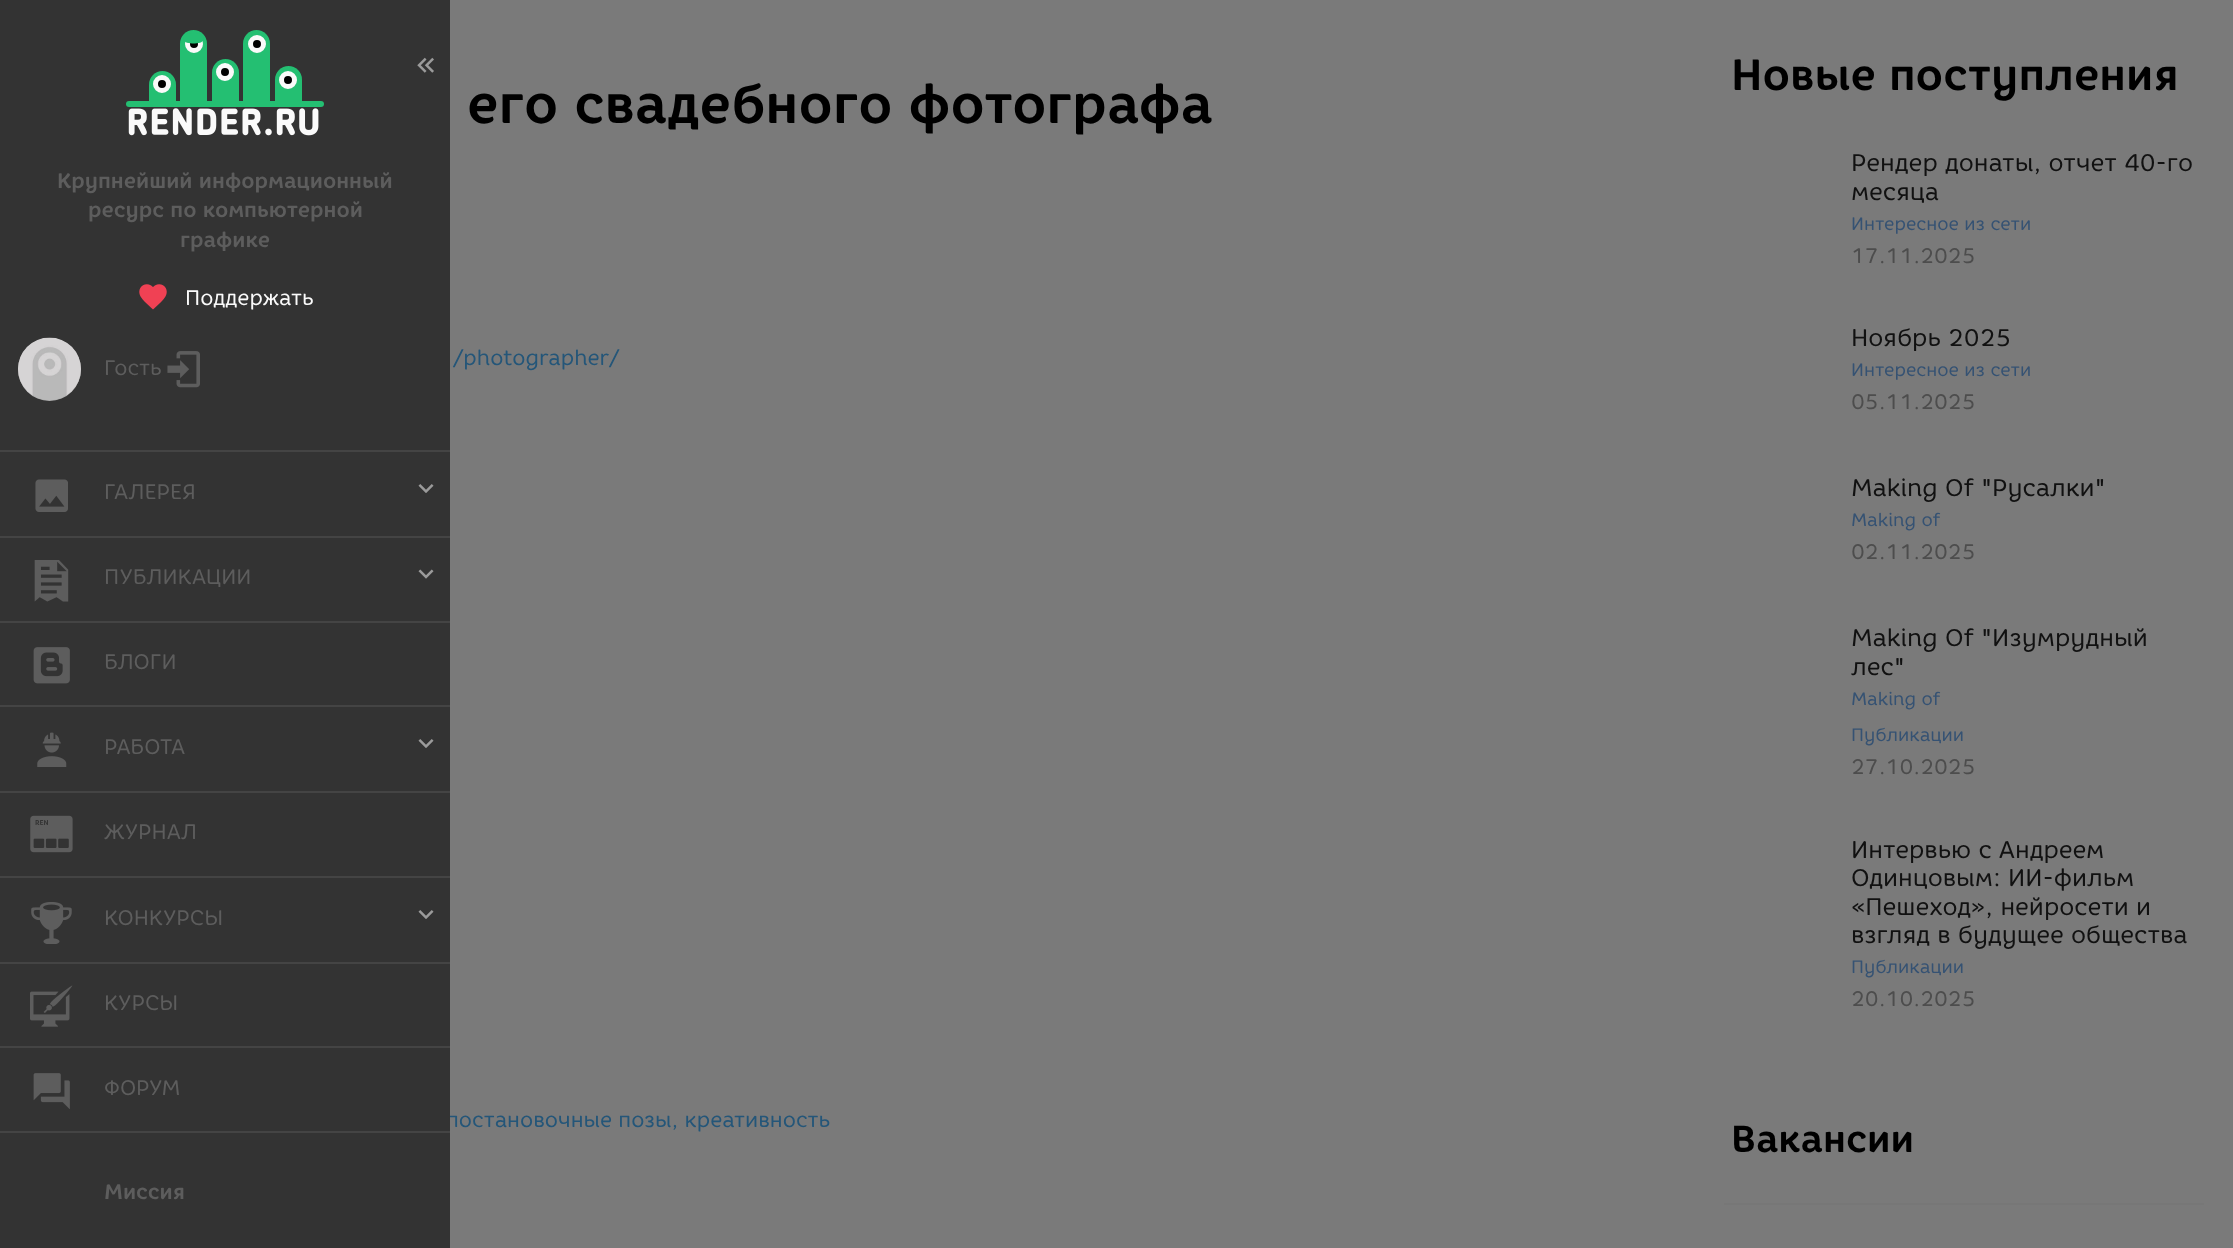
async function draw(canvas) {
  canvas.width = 2233;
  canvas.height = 1248;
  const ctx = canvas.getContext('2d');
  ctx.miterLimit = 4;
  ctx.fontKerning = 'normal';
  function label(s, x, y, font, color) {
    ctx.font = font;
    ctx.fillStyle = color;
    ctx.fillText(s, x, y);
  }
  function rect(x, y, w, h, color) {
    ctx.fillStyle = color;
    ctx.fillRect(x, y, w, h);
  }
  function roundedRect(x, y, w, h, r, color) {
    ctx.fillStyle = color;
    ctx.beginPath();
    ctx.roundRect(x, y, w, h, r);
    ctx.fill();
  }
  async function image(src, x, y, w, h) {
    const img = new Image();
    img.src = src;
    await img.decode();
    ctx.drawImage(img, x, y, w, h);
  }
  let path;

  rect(0, 0, 2233, 1248, '#7a7a7a');
  label('постановочные позы, креативность', 446, 1127, '21px "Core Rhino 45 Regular"', '#245679');
  rect(0, 0, 450, 1248, '#333');
  await image('assets/img1.png', 417, 57, 17, 16);
  await image('assets/img2.png', 128, 108, 191, 28);
  roundedRect(126, 101, 198, 6, 3, '#24bf72');
  ctx.beginPath();
  ctx.roundRect(149, 71, 27, 36, [13.5, 13.5, 0, 0]);
  ctx.fill();
  ctx.fillStyle = '#000';
  ctx.beginPath();
  ctx.arc(162, 84, 6.5, 0, 2 * Math.PI);
  ctx.fill();
  ctx.strokeStyle = '#fafafa';
  ctx.lineWidth = 5;
  ctx.stroke();
  ctx.fillStyle = '#24bf72';
  ctx.beginPath();
  ctx.roundRect(180, 30, 27, 77, [13.5, 13.5, 0, 0]);
  ctx.fill();
  ctx.fillStyle = '#000';
  ctx.beginPath();
  ctx.arc(194, 44, 6.5, 0, 2 * Math.PI);
  ctx.fill();
  ctx.stroke();
  ctx.fillStyle = '#24bf72';
  path = new Path2D('M193.5 33C197 33 204 33.5 204 38C204 43 197 43.5 193.5 43.5C190 43.5 183 43 183 38C183 33.5 190 33 193.5 33Z');
  ctx.fill(path);
  ctx.beginPath();
  ctx.roundRect(212, 59, 27, 48, [13.5, 13.5, 0, 0]);
  ctx.fill();
  ctx.fillStyle = '#000';
  ctx.beginPath();
  ctx.arc(225, 72, 6.5, 0, 2 * Math.PI);
  ctx.fill();
  ctx.stroke();
  ctx.fillStyle = '#24bf72';
  ctx.beginPath();
  ctx.roundRect(243, 30, 27, 77, [13.5, 13.5, 0, 0]);
  ctx.fill();
  ctx.fillStyle = '#000';
  ctx.beginPath();
  ctx.arc(257, 44, 6.5, 0, 2 * Math.PI);
  ctx.fill();
  ctx.stroke();
  ctx.fillStyle = '#24bf72';
  ctx.beginPath();
  ctx.roundRect(275, 66, 27, 41, [13.5, 13.5, 0, 0]);
  ctx.fill();
  ctx.fillStyle = '#000';
  ctx.beginPath();
  ctx.arc(288, 80, 6.5, 0, 2 * Math.PI);
  ctx.fill();
  ctx.stroke();
  label('Крупнейший информационный', 57, 188, 'bold 21px "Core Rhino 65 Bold"', '#5d5d5d');
  label('ресурс по компьютерной', 88, 217, 'bold 21px "Core Rhino 65 Bold"', '#5d5d5d');
  label('графике', 180, 247, 'bold 21px "Core Rhino 65 Bold"', '#5d5d5d');
  await image('assets/img3.png', 139, 284, 28, 26);
  label('Поддержать', 185, 305, '21px "Core Rhino 45 Regular"', '#fafafa');
  ctx.fillStyle = '#aaa';
  ctx.beginPath();
  ctx.arc(49.5, 369.5, 31.5, 0, 2 * Math.PI);
  ctx.fill();
  await image('assets/img4.png', 18, 337, 63, 64);
  label('Гость', 104, 375, '21px "Core Rhino 45 Regular"', '#5d5d5d');
  await image('assets/img5.png', 167, 351, 33, 37);
  rect(0, 450, 450, 2, '#444');
  await image('assets/img6.png', 35, 479, 33, 33);
  label('ГАЛЕРЕЯ', 104, 499, '21px "Core Rhino 45 Regular"', '#5d5d5d');
  await image('assets/img7.png', 418, 484, 16, 9);
  rect(0, 536, 450, 2, '#444');
  await image('assets/img8.png', 34, 560, 35, 42);
  label('ПУБЛИКАЦИИ', 104, 584, '21px "Core Rhino 45 Regular"', '#5d5d5d');
  await image('assets/img9.png', 418, 569, 16, 10);
  rect(0, 621, 450, 2, '#444');
  await image('assets/img10.png', 33, 647, 37, 37);
  label('БЛОГИ', 104, 669, '21px "Core Rhino 45 Regular"', '#5d5d5d');
  rect(0, 705, 450, 2, '#444');
  await image('assets/img11.png', 37, 732, 30, 35);
  label('РАБОТА', 104, 754, '21px "Core Rhino 45 Regular"', '#5d5d5d');
  await image('assets/img7.png', 418, 739, 16, 9);
  rect(0, 791, 450, 2, '#444');
  await image('assets/img12.png', 30, 815, 43, 38);
  label('REN', 35, 825, 'bold 7px "Core Rhino 65 Bold"', '#333');
  label('ЖУРНАЛ', 104, 839, '21px "Core Rhino 45 Regular"', '#5d5d5d');
  rect(0, 876, 450, 2, '#444');
  await image('assets/img13.png', 31, 902, 41, 42);
  label('КОНКУРСЫ', 104, 925, '21px "Core Rhino 45 Regular"', '#5d5d5d');
  await image('assets/img7.png', 418, 910, 16, 9);
  rect(0, 962, 450, 2, '#444');
  await image('assets/img14.png', 30, 985, 43, 42);
  label('КУРСЫ', 104, 1010, '21px "Core Rhino 45 Regular"', '#5d5d5d');
  rect(0, 1046, 450, 2, '#444');
  await image('assets/img15.png', 33, 1073, 37, 36);
  label('ФОРУМ', 104, 1095, '21px "Core Rhino 45 Regular"', '#5d5d5d');
  rect(0, 1131, 450, 2, '#444');
  label('Миссия', 104, 1199, 'bold 21px "Core Rhino 65 Bold"', '#5d5d5d');
  label('его свадебного фотографа', 467, 123, 'bold 54px "Core Rhino 65 Bold"', '#000');
  label('/photographer/', 453, 365, '21px "Core Rhino 45 Regular"', '#245679');
  label('Новые поступления', 1731, 90, 'bold 43.5px "Core Rhino 65 Bold"', '#000');
  label('Рендер донаты, отчет 40-го', 1851, 171, '24px "Core Rhino 45 Regular"', '#111');
  label('месяца', 1851, 200, '24px "Core Rhino 45 Regular"', '#111');
  label('Интересное из сети', 1851, 230, '18px "Core Rhino 45 Regular"', '#355273');
  label('17.11.2025', 1851, 263, '21px "Core Rhino 45 Regular"', '#4d4d4d');
  label('Ноябрь 2025', 1851, 346, '24px "Core Rhino 45 Regular"', '#111');
  label('Интересное из сети', 1851, 376, '18px "Core Rhino 45 Regular"', '#355273');
  label('05.11.2025', 1851, 409, '21px "Core Rhino 45 Regular"', '#4d4d4d');
  label('Making Of "Русалки"', 1851, 496, '24px "Core Rhino 45 Regular"', '#111');
  label('Making of', 1851, 526, '18px "Core Rhino 45 Regular"', '#355273');
  label('02.11.2025', 1851, 559, '21px "Core Rhino 45 Regular"', '#4d4d4d');
  label('Making Of "Изумрудный', 1851, 646, '24px "Core Rhino 45 Regular"', '#111');
  label('лес"', 1851, 675, '24px "Core Rhino 45 Regular"', '#111');
  label('Making of', 1851, 705, '18px "Core Rhino 45 Regular"', '#355273');
  label('Публикации', 1851, 741, '18px "Core Rhino 45 Regular"', '#355273');
  label('27.10.2025', 1851, 774, '21px "Core Rhino 45 Regular"', '#4d4d4d');
  label('Интервью с Андреем', 1851, 858, '24px "Core Rhino 45 Regular"', '#111');
  label('Одинцовым: ИИ-фильм', 1851, 886, '24px "Core Rhino 45 Regular"', '#111');
  label('«Пешеход», нейросети и', 1851, 915, '24px "Core Rhino 45 Regular"', '#111');
  label('взгляд в будущее общества', 1851, 943, '24px "Core Rhino 45 Regular"', '#111');
  label('Публикации', 1851, 973, '18px "Core Rhino 45 Regular"', '#355273');
  label('20.10.2025', 1851, 1006, '21px "Core Rhino 45 Regular"', '#4d4d4d');
  label('Вакансии', 1731, 1152, 'bold 37.5px "Core Rhino 65 Bold"', '#000');
  rect(1724, 1203, 480, 2, '#777');
}

draw(document.querySelector('canvas'));
